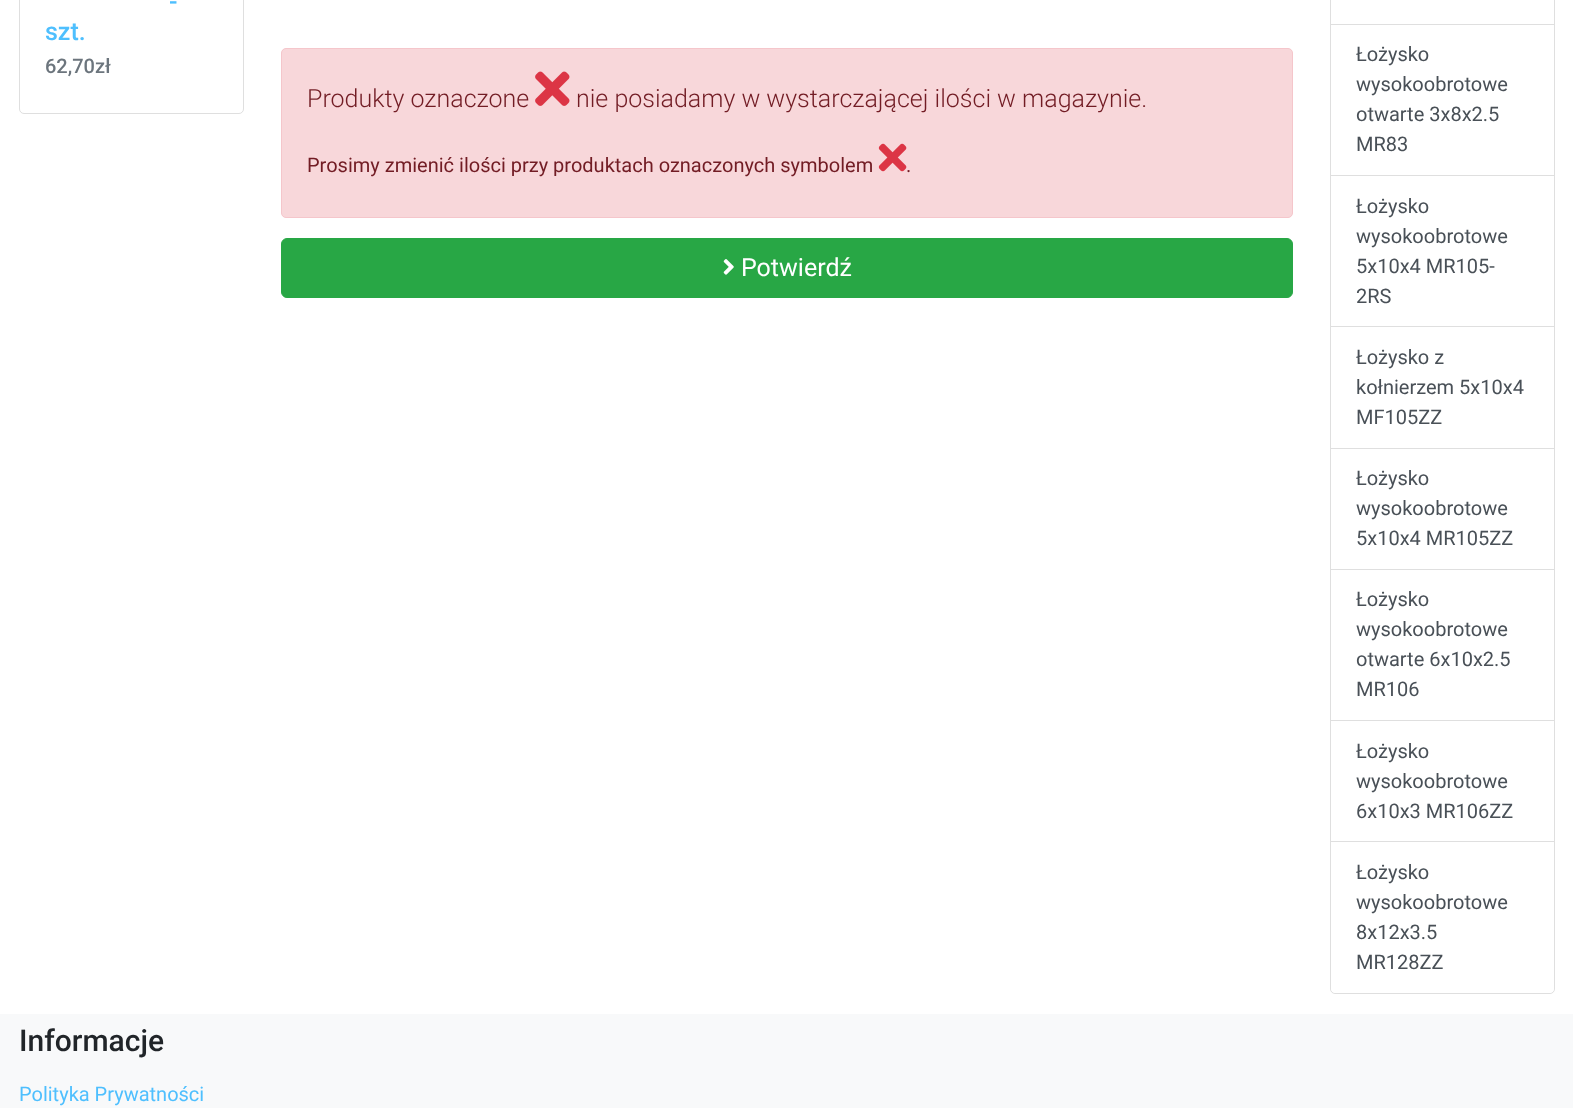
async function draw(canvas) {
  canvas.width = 1573;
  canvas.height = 1108;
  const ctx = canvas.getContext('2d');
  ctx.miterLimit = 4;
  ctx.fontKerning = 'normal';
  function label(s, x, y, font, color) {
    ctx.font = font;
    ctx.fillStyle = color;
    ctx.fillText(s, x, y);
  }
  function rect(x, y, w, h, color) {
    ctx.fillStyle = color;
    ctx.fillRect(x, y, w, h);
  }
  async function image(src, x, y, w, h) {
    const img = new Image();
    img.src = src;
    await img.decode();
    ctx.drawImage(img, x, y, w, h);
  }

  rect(0, 0, 1573, 1108, '#fff');
  ctx.beginPath();
  ctx.roundRect(19.5, -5.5, 224, 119, 4.5);
  ctx.strokeStyle = '#dfdfdf';
  ctx.stroke();
  label('-', 169, 10, '500 25px Roboto', '#4ebffe');
  label('szt.', 45, 40, '500 25px Roboto', '#4ebffe');
  label('62,70zł', 45, 73, '500 20px Roboto', '#6c757d');
  ctx.fillStyle = '#f8d7da';
  ctx.beginPath();
  ctx.roundRect(281.5, 48.5, 1011, 169, 4.5);
  ctx.fill();
  ctx.strokeStyle = '#f5c6cb';
  ctx.stroke();
  label('Produkty oznaczone', 307, 107, '300 25px Roboto', '#721c24');
  await image('assets/img1.png', 535, 71, 35, 35);
  label('nie posiadamy w wystarczającej ilości w magazynie.', 576, 107, '300 25px Roboto', '#721c24');
  label('Prosimy zmienić ilości przy produktach oznaczonych symbolem', 307, 172, '20px Roboto', '#721c24');
  await image('assets/img2.png', 878, 143, 29, 29);
  label('.', 906, 172, '20px Roboto', '#721c24');
  ctx.fillStyle = '#28a745';
  ctx.beginPath();
  ctx.roundRect(281.5, 238.5, 1011, 59, 5.5);
  ctx.fill();
  ctx.strokeStyle = '#28a745';
  ctx.stroke();
  await image('assets/img3.png', 723, 259, 11, 16);
  label('Potwierdź', 741, 276, '25px Roboto', '#fff');
  ctx.beginPath();
  ctx.roundRect(1330.5, -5.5, 224, 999, 4.5);
  ctx.strokeStyle = '#dfdfdf';
  ctx.stroke();
  rect(1331, 24, 223, 1, '#dfdfdf');
  rect(1331, 175, 223, 1, '#dfdfdf');
  label('Łożysko', 1356, 61, '20px Roboto', '#495057');
  label('wysokoobrotowe', 1356, 91, '20px Roboto', '#495057');
  label('otwarte 3x8x2.5', 1356, 121, '20px Roboto', '#495057');
  label('MR83', 1356, 151, '20px Roboto', '#495057');
  rect(1331, 326, 223, 1, '#dfdfdf');
  label('Łożysko', 1356, 213, '20px Roboto', '#495057');
  label('wysokoobrotowe', 1356, 243, '20px Roboto', '#495057');
  label('5x10x4 MR105-', 1356, 273, '20px Roboto', '#495057');
  label('2RS', 1356, 303, '20px Roboto', '#495057');
  rect(1331, 448, 223, 1, '#dfdfdf');
  label('Łożysko z', 1356, 364, '20px Roboto', '#495057');
  label('kołnierzem 5x10x4', 1356, 394, '20px Roboto', '#495057');
  label('MF105ZZ', 1356, 424, '20px Roboto', '#495057');
  rect(1331, 569, 223, 1, '#dfdfdf');
  label('Łożysko', 1356, 485, '20px Roboto', '#495057');
  label('wysokoobrotowe', 1356, 515, '20px Roboto', '#495057');
  label('5x10x4 MR105ZZ', 1356, 545, '20px Roboto', '#495057');
  rect(1331, 720, 223, 1, '#dfdfdf');
  label('Łożysko', 1356, 606, '20px Roboto', '#495057');
  label('wysokoobrotowe', 1356, 636, '20px Roboto', '#495057');
  label('otwarte 6x10x2.5', 1356, 666, '20px Roboto', '#495057');
  label('MR106', 1356, 696, '20px Roboto', '#495057');
  rect(1331, 841, 223, 1, '#dfdfdf');
  label('Łożysko', 1356, 758, '20px Roboto', '#495057');
  label('wysokoobrotowe', 1356, 788, '20px Roboto', '#495057');
  label('6x10x3 MR106ZZ', 1356, 818, '20px Roboto', '#495057');
  ctx.fillStyle = '#fff';
  ctx.beginPath();
  ctx.roundRect(1331, 843, 223, 150, [0, 0, 5, 5]);
  ctx.fill();
  label('Łożysko', 1356, 879, '20px Roboto', '#495057');
  label('wysokoobrotowe', 1356, 909, '20px Roboto', '#495057');
  label('8x12x3.5', 1356, 939, '20px Roboto', '#495057');
  label('MR128ZZ', 1356, 969, '20px Roboto', '#495057');
  rect(0, 1014, 1573, 94, '#f8f9fa');
  label('Informacje', 19, 1051, '500 30px Roboto', '#212529');
  label('Polityka Prywatności', 19, 1101, '20px Roboto', '#4ebffe');
}

draw(document.querySelector('canvas'));
